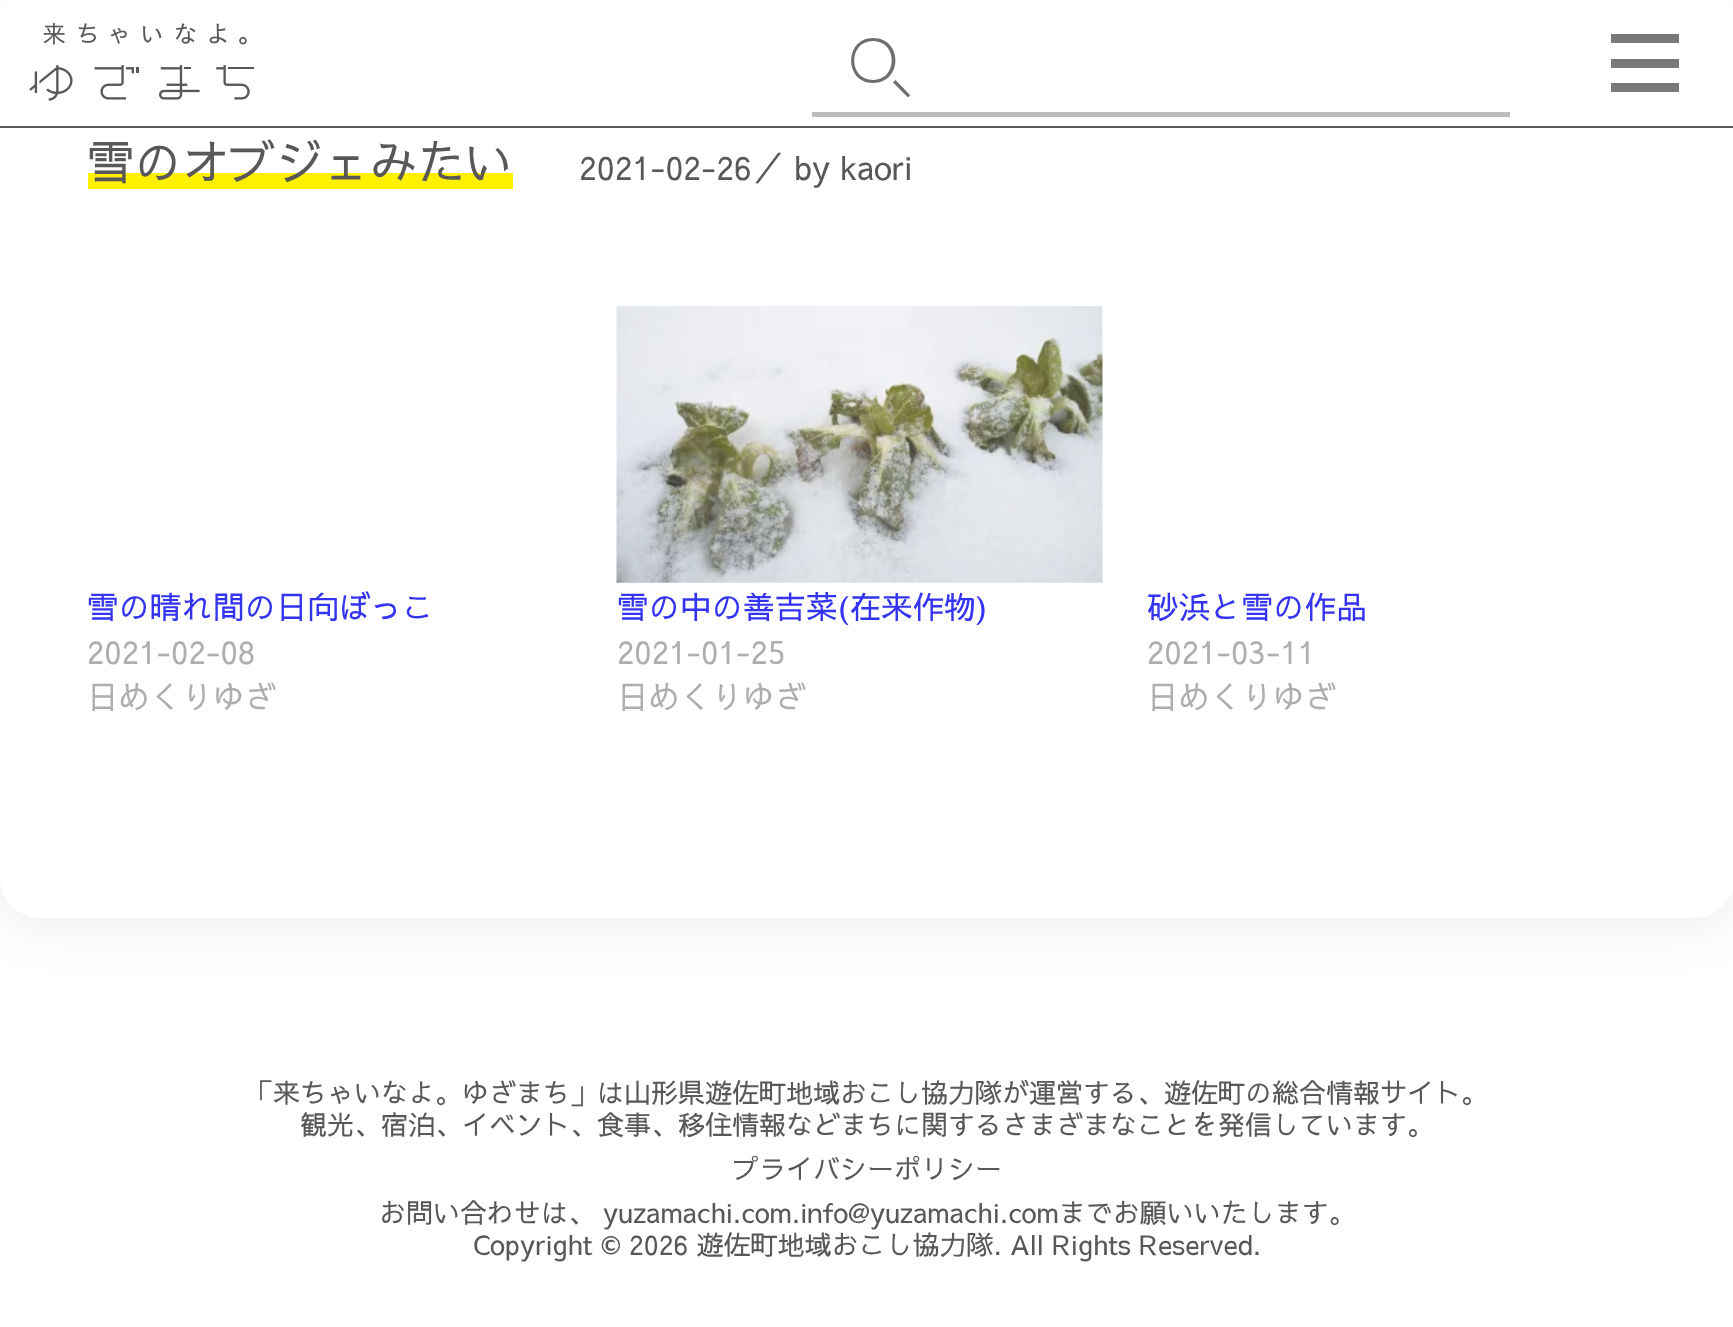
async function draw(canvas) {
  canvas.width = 1733;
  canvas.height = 1327;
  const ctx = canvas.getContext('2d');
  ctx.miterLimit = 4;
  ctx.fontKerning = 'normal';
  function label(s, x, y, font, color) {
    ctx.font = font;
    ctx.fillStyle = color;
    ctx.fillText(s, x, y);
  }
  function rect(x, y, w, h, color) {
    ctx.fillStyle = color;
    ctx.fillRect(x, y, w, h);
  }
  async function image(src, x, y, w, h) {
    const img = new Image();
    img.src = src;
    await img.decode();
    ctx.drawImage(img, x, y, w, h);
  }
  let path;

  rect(0, 0, 1733, 1327, '#fff');
  ctx.save();
  path = new Path2D('M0 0H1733V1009H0ZM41-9H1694C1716.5-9 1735 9.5 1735 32V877C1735 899.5 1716.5 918 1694 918H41C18.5 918 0 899.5 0 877V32C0 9.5 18.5-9 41-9Z');
  ctx.clip(path, 'evenodd');
  ctx.fillStyle = '#00000012';
  ctx.filter = 'blur(27px)';
  ctx.beginPath();
  ctx.roundRect(0, 0, 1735, 927, 41);
  ctx.fill();
  ctx.filter = 'none';
  ctx.restore();
  rect(0, 126, 1733, 2, '#595757');
  rect(0, 0, 1733, 25, '#ffffffcc');
  await image('assets/img1.png', 29, 23, 225, 78);
  rect(1611, 34, 68, 9, '#7a7979');
  rect(1611, 59, 68, 9, '#7a7979');
  rect(1611, 83, 68, 9, '#7a7979');
  ctx.fillStyle = '#bebdbd';
  path = new Path2D('M812 27V117H1510V27V112H812Z');
  ctx.fill(path);
  ctx.fillStyle = '#6e6f6d';
  path = new Path2D('M873 83C844 83 844 38 873 38C903 38 903 83 873 83ZM873 41C848 41 848 80 873 80C898 80 898 41 873 41Z');
  ctx.fill(path);
  path = new Path2D('M895.5 80L909.5 94.5C910.5 96.5 908 97.5 907 96.5L893 82.5');
  ctx.fill(path);
  rect(88, 173, 425, 16, '#fff100');
  label('雪のオブジェみたい', 87, 180, '47.25px Sawarabi Gothic', '#595757');
  label('2021-02-26／ by kaori', 579, 180, '32.4px Sawarabi Gothic', '#595757');
  label('雪の晴れ間の日向ぼっこ', 87, 619, '31.5px Sawarabi Gothic', '#3333f1');
  label('2021-02-08', 87, 664, '31.5px Sawarabi Gothic', '#afaeae');
  label('日めくりゆざ', 87, 709, '31.5px Sawarabi Gothic', '#afaeae');
  await image('assets/img2.png', 616, 306, 487, 277);
  label('雪の中の善吉菜(在来作物)', 617, 619, '31.5px Sawarabi Gothic', '#3333f1');
  label('2021-01-25', 617, 664, '31.5px Sawarabi Gothic', '#afaeae');
  label('日めくりゆざ', 617, 709, '31.5px Sawarabi Gothic', '#afaeae');
  label('砂浜と雪の作品', 1147, 619, '31.5px Sawarabi Gothic', '#3333f1');
  label('2021-03-11', 1147, 664, '31.5px Sawarabi Gothic', '#afaeae');
  label('日めくりゆざ', 1147, 709, '31.5px Sawarabi Gothic', '#afaeae');
  label('「来ちゃいなよ。ゆざまち」は山形県遊佐町地域おこし協力隊が運営する、遊佐町の総合情報サイト。', 246, 1103, '27px Sawarabi Gothic', '#595757');
  label('観光、宿泊、イベント、食事、移住情報などまちに関するさまざまなことを発信しています。', 300, 1135, '27px Sawarabi Gothic', '#595757');
  label('プライバシーポリシー', 732, 1179, '27px Sawarabi Gothic', '#595757');
  label('お問い合わせは、 yuzamachi.com.info@yuzamachi.comまでお願いいたします。', 379, 1223, '27px Sawarabi Gothic', '#595757');
  label('Copyright © 2026 遊佐町地域おこし協力隊. All Rights Reserved.', 473, 1255, '27px Sawarabi Gothic', '#595757');
}

draw(document.querySelector('canvas'));
